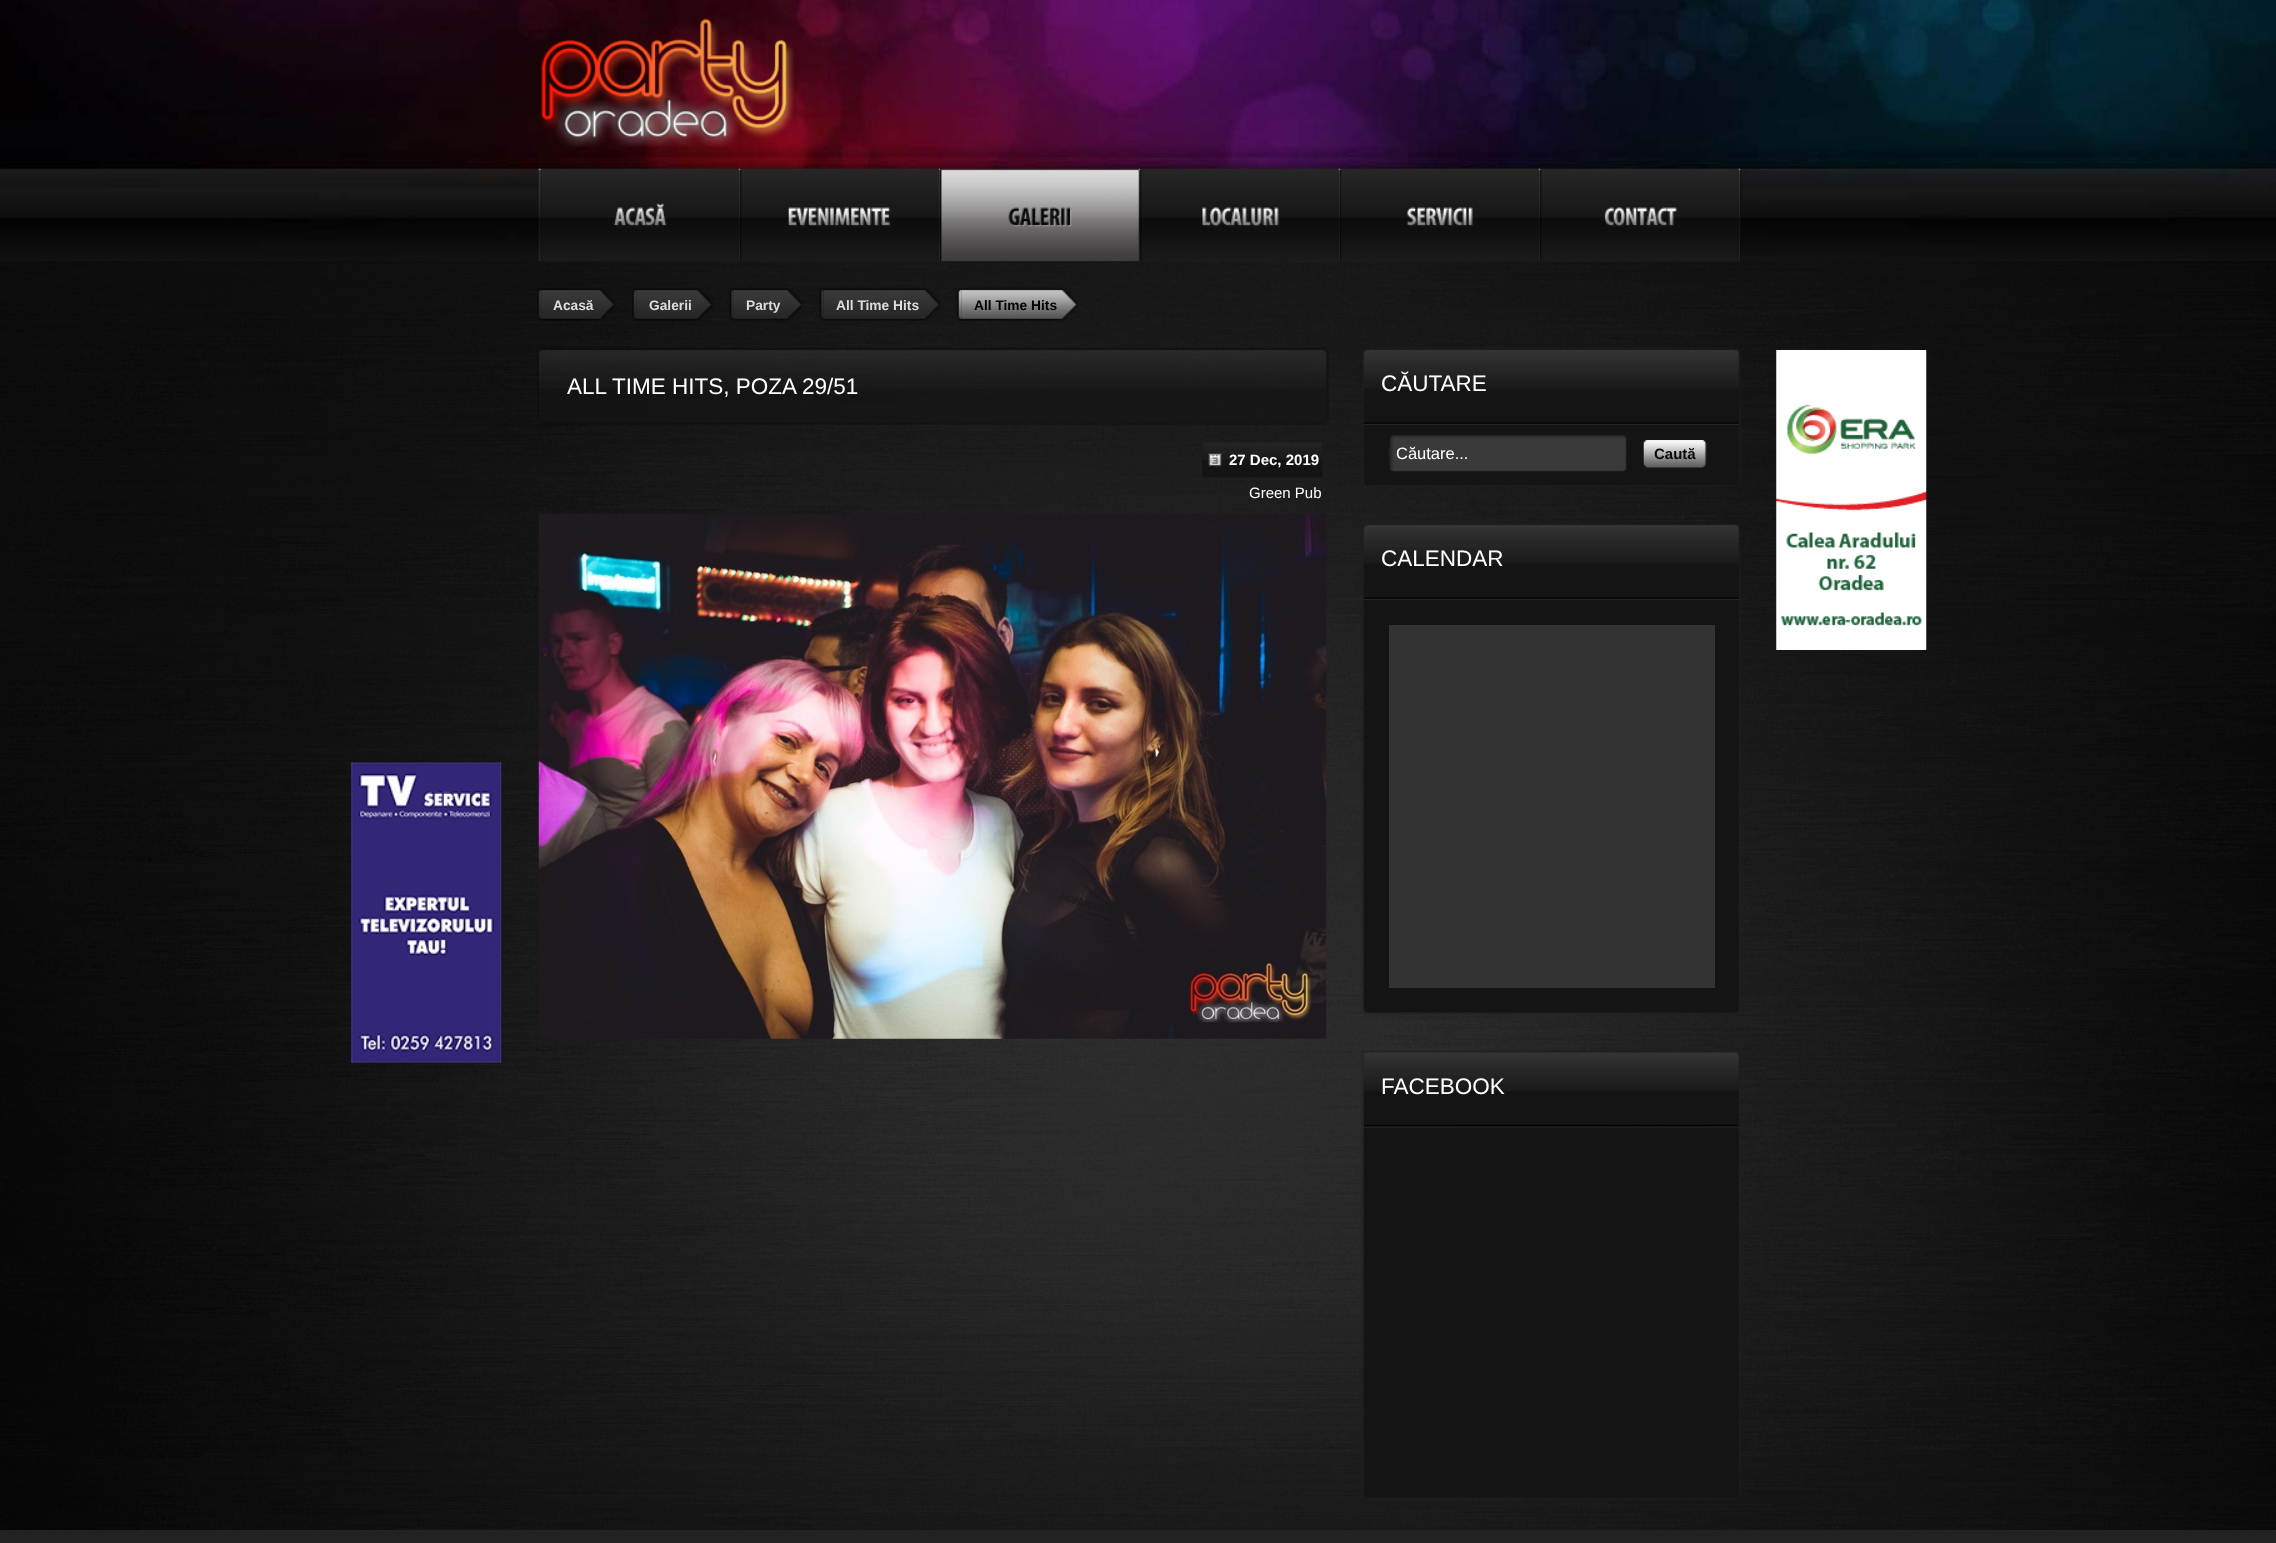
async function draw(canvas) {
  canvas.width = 2276;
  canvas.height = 1543;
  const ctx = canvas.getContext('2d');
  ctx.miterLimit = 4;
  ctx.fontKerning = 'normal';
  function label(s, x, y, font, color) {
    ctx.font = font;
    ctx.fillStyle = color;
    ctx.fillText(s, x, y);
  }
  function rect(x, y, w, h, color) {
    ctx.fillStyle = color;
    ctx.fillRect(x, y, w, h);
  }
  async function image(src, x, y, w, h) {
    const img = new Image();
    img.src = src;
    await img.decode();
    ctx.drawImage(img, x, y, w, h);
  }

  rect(0, 0, 2276, 1543, '#fff');
  await image('assets/img1.png', 0, 261, 2276, 1269);
  await image('assets/img2.png', 0, 0, 2276, 261);
  await image('assets/img3.png', 540, 18, 254, 129);
  await image('assets/img4.png', 538, 168, 5, 94);
  await image('assets/img14.png', 1338, 168, 3, 93);
  await image('assets/img15.png', 1141, 168, 198, 94);
  await image('assets/img11.png', 1138, 168, 4, 93);
  await image('assets/img12.png', 941, 169, 198, 93);
  await image('assets/img8.png', 938, 168, 4, 93);
  await image('assets/img9.png', 741, 168, 198, 94);
  await image('assets/img5.png', 738, 168, 4, 94);
  await image('assets/img6.png', 541, 168, 198, 94);
  await image('assets/img7.png', 613, 203, 54, 24);
  await image('assets/img10.png', 788, 207, 103, 20);
  await image('assets/img13.png', 1008, 207, 64, 20);
  await image('assets/img16.png', 1202, 207, 78, 20);
  await image('assets/img20.png', 1738, 168, 4, 94);
  await image('assets/img21.png', 1541, 168, 198, 94);
  await image('assets/img17.png', 1538, 168, 4, 93);
  await image('assets/img18.png', 1341, 168, 198, 94);
  await image('assets/img19.png', 1406, 207, 68, 20);
  await image('assets/img22.png', 1604, 207, 73, 20);
  await image('assets/img23.png', 537, 288, 5, 32);
  await image('assets/img24.png', 541, 288, 74, 33);
  label('Acasă', 553, 310, 'bold 13.75px Liberation Sans', '#ddd');
  await image('assets/img25.png', 632, 288, 5, 32);
  await image('assets/img26.png', 636, 288, 77, 33);
  label('Galerii', 649, 310, 'bold 13.75px Liberation Sans', '#ddd');
  await image('assets/img27.png', 729, 288, 5, 33);
  await image('assets/img28.png', 734, 288, 69, 33);
  label('Party', 746, 310, 'bold 13.75px Liberation Sans', '#ddd');
  await image('assets/img29.png', 819, 288, 5, 33);
  await image('assets/img30.png', 824, 288, 116, 33);
  label('All Time Hits', 836, 310, 'bold 13.75px Liberation Sans', '#ddd');
  await image('assets/img31.png', 956, 288, 6, 33);
  await image('assets/img32.png', 961, 287, 117, 34);
  label('All Time Hits', 974, 310, 'bold 13.75px Liberation Sans', '#000');
  await image('assets/img33.png', 537, 350, 6, 70);
  await image('assets/img34.png', 542, 347, 787, 78);
  label('ALL TIME HITS, POZA 29/51', 567, 394, '22.5px Liberation Sans', '#fff');
  await image('assets/img35.png', 1202, 442, 121, 36);
  await image('assets/img36.png', 1208, 453, 14, 14);
  label('27 Dec, 2019', 1229, 465, 'bold 15px Liberation Sans', '#fff');
  label('Green Pub', 1249, 498, '15px Liberation Sans', '#fff');
  await image('assets/img37.png', 351, 762, 151, 301);
  await image('assets/img38.png', 538, 513, 789, 526);
  await image('assets/img39.png', 1362, 347, 379, 78);
  label('CĂUTARE', 1381, 391, '22.5px Liberation Sans', '#fff');
  await image('assets/img40.png', 1362, 425, 380, 62);
  await image('assets/img41.png', 1388, 435, 239, 37);
  label('Căutare...', 1396, 459, '16.5px Liberation Sans', '#fff');
  await image('assets/img42.png', 1643, 440, 64, 28);
  label('Caută', 1654, 459, 'bold 15px Liberation Sans', '#070707');
  await image('assets/img43.png', 1776, 350, 151, 300);
  await image('assets/img44.png', 1363, 523, 378, 77);
  label('CALENDAR', 1381, 566, '22.5px Liberation Sans', '#fff');
  await image('assets/img45.png', 1361, 600, 380, 415);
  rect(1389, 625, 326, 363, '#333');
  await image('assets/img46.png', 1361, 1050, 378, 78);
  label('FACEBOOK', 1381, 1094, '22.5px Liberation Sans', '#fff');
  await image('assets/img47.png', 1361, 1127, 380, 373);
  rect(0, 1530, 2276, 13, '#222');
}

draw(document.querySelector('canvas'));
